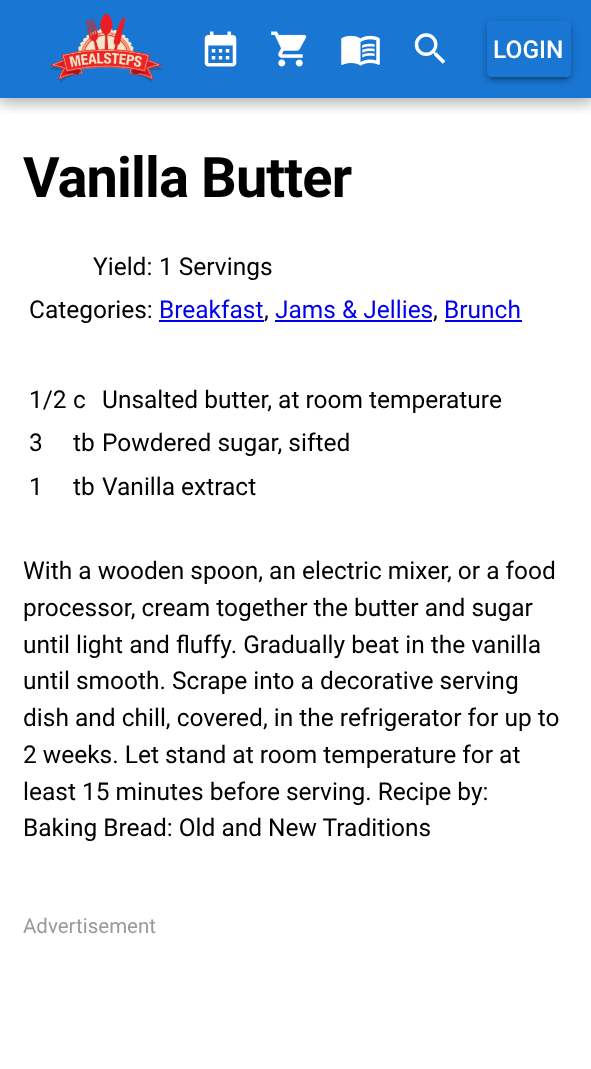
async function draw(canvas) {
  canvas.width = 591;
  canvas.height = 1069;
  const ctx = canvas.getContext('2d');
  ctx.miterLimit = 4;
  ctx.fontKerning = 'normal';
  function label(s, x, y, font, color) {
    ctx.font = font;
    ctx.fillStyle = color;
    ctx.fillText(s, x, y);
  }
  function rect(x, y, w, h, color) {
    ctx.fillStyle = color;
    ctx.fillRect(x, y, w, h);
  }
  async function image(src, x, y, w, h) {
    const img = new Image();
    img.src = src;
    await img.decode();
    ctx.drawImage(img, x, y, w, h);
  }
  let path;

  rect(0, 0, 591, 1069, '#fff');
  rect(0, 0, 591, 98, '#1976d2');
  await image('assets/img1.png', 49, 14, 114, 69);
  await image('assets/img2.png', 204, 31, 33, 36);
  await image('assets/img3.png', 271, 31, 36, 36);
  await image('assets/img4.png', 341, 35, 39, 31);
  await image('assets/img5.png', 414, 33, 32, 31);
  ctx.save();
  ctx.beginPath();
  ctx.rect(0, 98, 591, 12);
  ctx.clip();
  ctx.fillStyle = '#0000003d';
  ctx.filter = 'blur(9px)';
  ctx.beginPath();
  ctx.rect(0, 0, 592, 98);
  ctx.fill();
  ctx.filter = 'none';
  ctx.restore();
  ctx.save();
  ctx.beginPath();
  ctx.rect(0, 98, 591, 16);
  ctx.clip();
  ctx.fillStyle = '#00000033';
  ctx.filter = 'blur(9px)';
  ctx.beginPath();
  ctx.rect(-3, -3, 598, 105);
  ctx.fill();
  ctx.filter = 'none';
  ctx.restore();
  ctx.save();
  ctx.beginPath();
  ctx.rect(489, 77, 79, 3);
  ctx.clip();
  ctx.fillStyle = '#0000001f';
  ctx.filter = 'blur(1px)';
  ctx.beginPath();
  ctx.roundRect(490, 30, 77, 49, 2);
  ctx.fill();
  ctx.filter = 'none';
  ctx.restore();
  ctx.save();
  path = new Path2D('M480 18H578V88H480ZM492 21H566C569 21 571 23 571 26V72C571 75 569 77 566 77H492C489 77 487 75 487 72V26C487 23 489 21 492 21Z');
  ctx.clip(path, 'evenodd');
  ctx.fillStyle = '#00000024';
  ctx.filter = 'blur(2px)';
  ctx.beginPath();
  ctx.roundRect(487, 25, 84, 56, 5);
  ctx.fill();
  ctx.filter = 'none';
  ctx.restore();
  ctx.save();
  path = new Path2D('M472 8H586V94H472ZM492 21H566C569 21 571 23 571 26V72C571 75 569 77 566 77H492C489 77 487 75 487 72V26C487 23 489 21 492 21Z');
  ctx.clip(path, 'evenodd');
  ctx.fillStyle = '#00000033';
  ctx.filter = 'blur(4.5px)';
  ctx.beginPath();
  ctx.roundRect(487, 23, 84, 56, 5);
  ctx.fill();
  ctx.filter = 'none';
  ctx.restore();
  label('LOGIN', 493, 58, '500 24.5px Roboto', '#fff');
  ctx.letterSpacing = '-0.9px';
  label('Vanilla Butter', 23, 197, 'bold 56px Roboto', '#000');
  ctx.letterSpacing = '0px';
  label('Yield:', 93, 275, '24.5px Roboto', '#000');
  label('1 Servings', 159, 275, '24.5px Roboto', '#000');
  label('Categories:', 29, 318, '24.5px Roboto', '#000');
  label('Breakfast', 159, 318, '24.5px Roboto', '#00e');
  rect(159, 320, 105, 2, '#00e');
  label(',', 264, 318, '24.5px Roboto', '#000');
  rect(275, 320, 157, 2, '#00e');
  label('Jams & Jellies', 275, 318, '24.5px Roboto', '#00e');
  label(',', 433, 318, '24.5px Roboto', '#000');
  rect(445, 320, 77, 2, '#00e');
  label('Brunch', 444, 318, '24.5px Roboto', '#00e');
  label('1/2', 29, 408, '24.5px Roboto', '#000');
  label('c', 73, 408, '24.5px Roboto', '#000');
  label('Unsalted butter, at room temperature', 102, 408, '24.5px Roboto', '#000');
  label('3', 29, 451, '24.5px Roboto', '#000');
  label('tb', 73, 451, '24.5px Roboto', '#000');
  label('Powdered sugar, sifted', 102, 451, '24.5px Roboto', '#000');
  label('1', 29, 495, '24.5px Roboto', '#000');
  label('tb', 73, 495, '24.5px Roboto', '#000');
  label('Vanilla extract', 102, 495, '24.5px Roboto', '#000');
  label('With a wooden spoon, an electric mixer, or a food', 23, 579, '24.5px Roboto', '#000');
  label('processor, cream together the butter and sugar', 23, 616, '24.5px Roboto', '#000');
  label('until light and fluffy. Gradually beat in the vanilla', 23, 653, '24.5px Roboto', '#000');
  label('until smooth. Scrape into a decorative serving', 23, 689, '24.5px Roboto', '#000');
  label('dish and chill, covered, in the refrigerator for up to', 23, 726, '24.5px Roboto', '#000');
  label('2 weeks. Let stand at room temperature for at', 23, 763, '24.5px Roboto', '#000');
  label('least 15 minutes before serving. Recipe by:', 23, 800, '24.5px Roboto', '#000');
  label('Baking Bread: Old and New Traditions', 23, 836, '24.5px Roboto', '#000');
  label('Advertisement', 23, 933, '20.5px Roboto', '#999');
}

draw(document.querySelector('canvas'));
